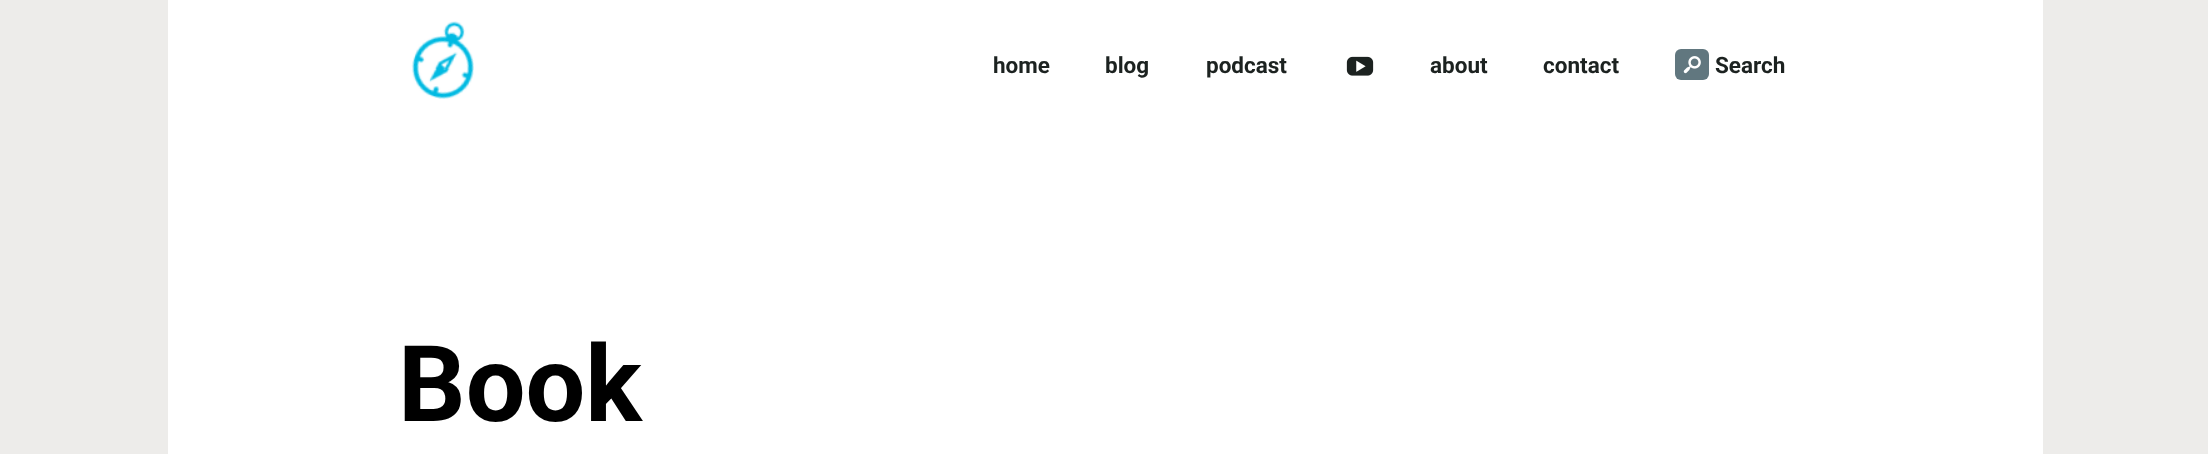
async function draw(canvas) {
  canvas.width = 2208;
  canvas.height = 454;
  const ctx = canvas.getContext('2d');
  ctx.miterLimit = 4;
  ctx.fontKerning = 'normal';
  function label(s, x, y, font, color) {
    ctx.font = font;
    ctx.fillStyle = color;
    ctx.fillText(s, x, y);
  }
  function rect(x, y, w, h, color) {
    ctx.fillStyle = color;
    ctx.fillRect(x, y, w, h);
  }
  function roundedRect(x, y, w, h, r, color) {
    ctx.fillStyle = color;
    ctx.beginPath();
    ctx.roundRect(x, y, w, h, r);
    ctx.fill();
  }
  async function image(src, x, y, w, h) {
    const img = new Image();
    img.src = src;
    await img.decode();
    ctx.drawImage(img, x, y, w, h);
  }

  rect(0, 0, 2208, 454, '#edecea');
  rect(168, 0, 1875, 454, '#fff');
  await image('assets/img1.png', 411, 21, 63, 78);
  label('home', 993, 73, 'bold 22.5px Roboto', '#1c2220');
  label('blog', 1105, 73, 'bold 22.5px Roboto', '#1c2220');
  label('podcast', 1206, 73, 'bold 22.5px Roboto', '#1c2220');
  await image('assets/img2.png', 1346, 56, 28, 20);
  label('about', 1430, 73, 'bold 22.5px Roboto', '#1c2220');
  label('contact', 1543, 73, 'bold 22.5px Roboto', '#1c2220');
  roundedRect(1675, 49, 34, 31, 6, '#61777f');
  await image('assets/img3.png', 1683, 56, 18, 18);
  label('Search', 1715, 73, 'bold 22.5px Roboto', '#1c2220');
  label('Book', 398, 421, 'bold 106px Roboto', '#000');
}

draw(document.querySelector('canvas'));
